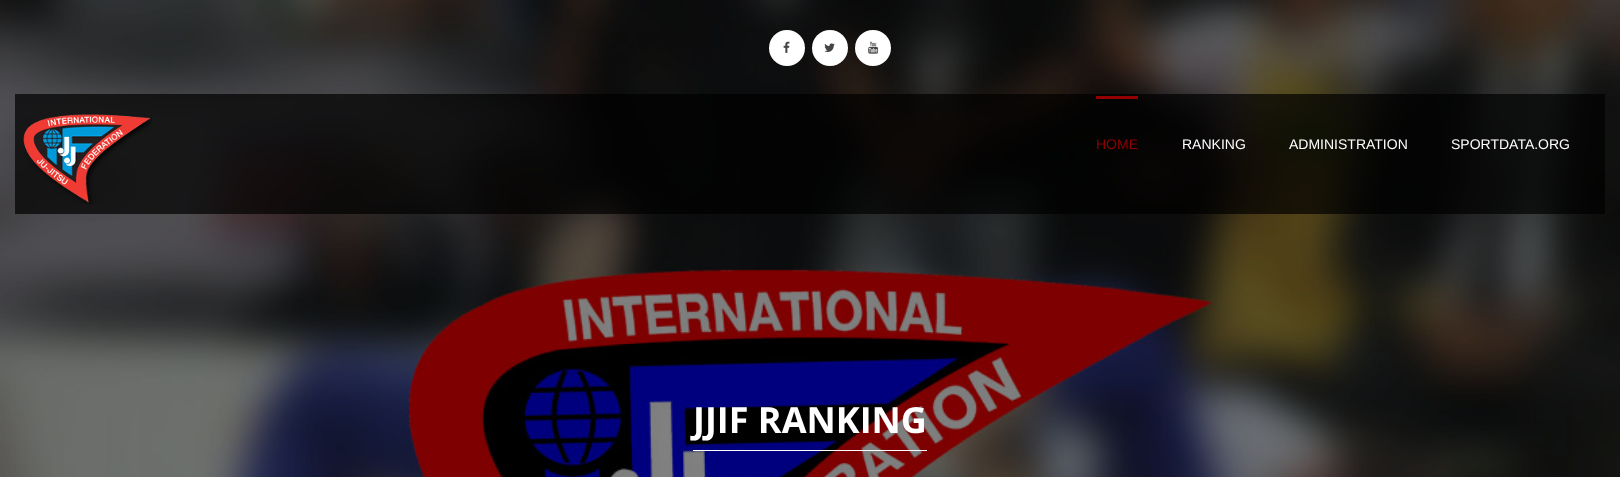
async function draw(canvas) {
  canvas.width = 1620;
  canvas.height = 477;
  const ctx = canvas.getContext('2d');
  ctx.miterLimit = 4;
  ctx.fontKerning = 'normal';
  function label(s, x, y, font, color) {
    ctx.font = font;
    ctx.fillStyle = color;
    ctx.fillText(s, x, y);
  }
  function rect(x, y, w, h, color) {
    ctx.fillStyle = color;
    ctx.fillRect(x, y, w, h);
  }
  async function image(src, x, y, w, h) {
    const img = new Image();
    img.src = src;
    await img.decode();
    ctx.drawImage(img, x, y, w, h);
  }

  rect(0, 0, 1620, 477, '#fff');
  await image('assets/img5.png', 0, 0, 1620, 477);
  ctx.beginPath();
  ctx.arc(787, 48, 18, 0, 2 * Math.PI);
  ctx.fill();
  await image('assets/img1.png', 783, 41, 7, 12);
  ctx.beginPath();
  ctx.arc(830, 48, 18, 0, 2 * Math.PI);
  ctx.fill();
  await image('assets/img2.png', 824, 43, 11, 9);
  ctx.beginPath();
  ctx.arc(873, 48, 18, 0, 2 * Math.PI);
  ctx.fill();
  await image('assets/img3.png', 868, 41, 11, 13);
  rect(15, 94, 1590, 120, '#000000b3');
  await image('assets/img4.png', 23, 114, 129, 90);
  label('HOME', 1096, 149, '14px Liberation Sans', '#920000');
  rect(1096, 96, 42, 3, '#920000');
  label('RANKING', 1182, 149, '14px Liberation Sans', '#fff');
  label('ADMINISTRATION', 1289, 149, '14px Liberation Sans', '#fff');
  label('SPORTDATA.ORG', 1451, 149, '14px Liberation Sans', '#fff');
  rect(693, 450, 234, 1, '#fff');
  label('JJIF RANKING', 693, 433, 'bold 36px Open Sans', '#fff');
}

draw(document.querySelector('canvas'));
